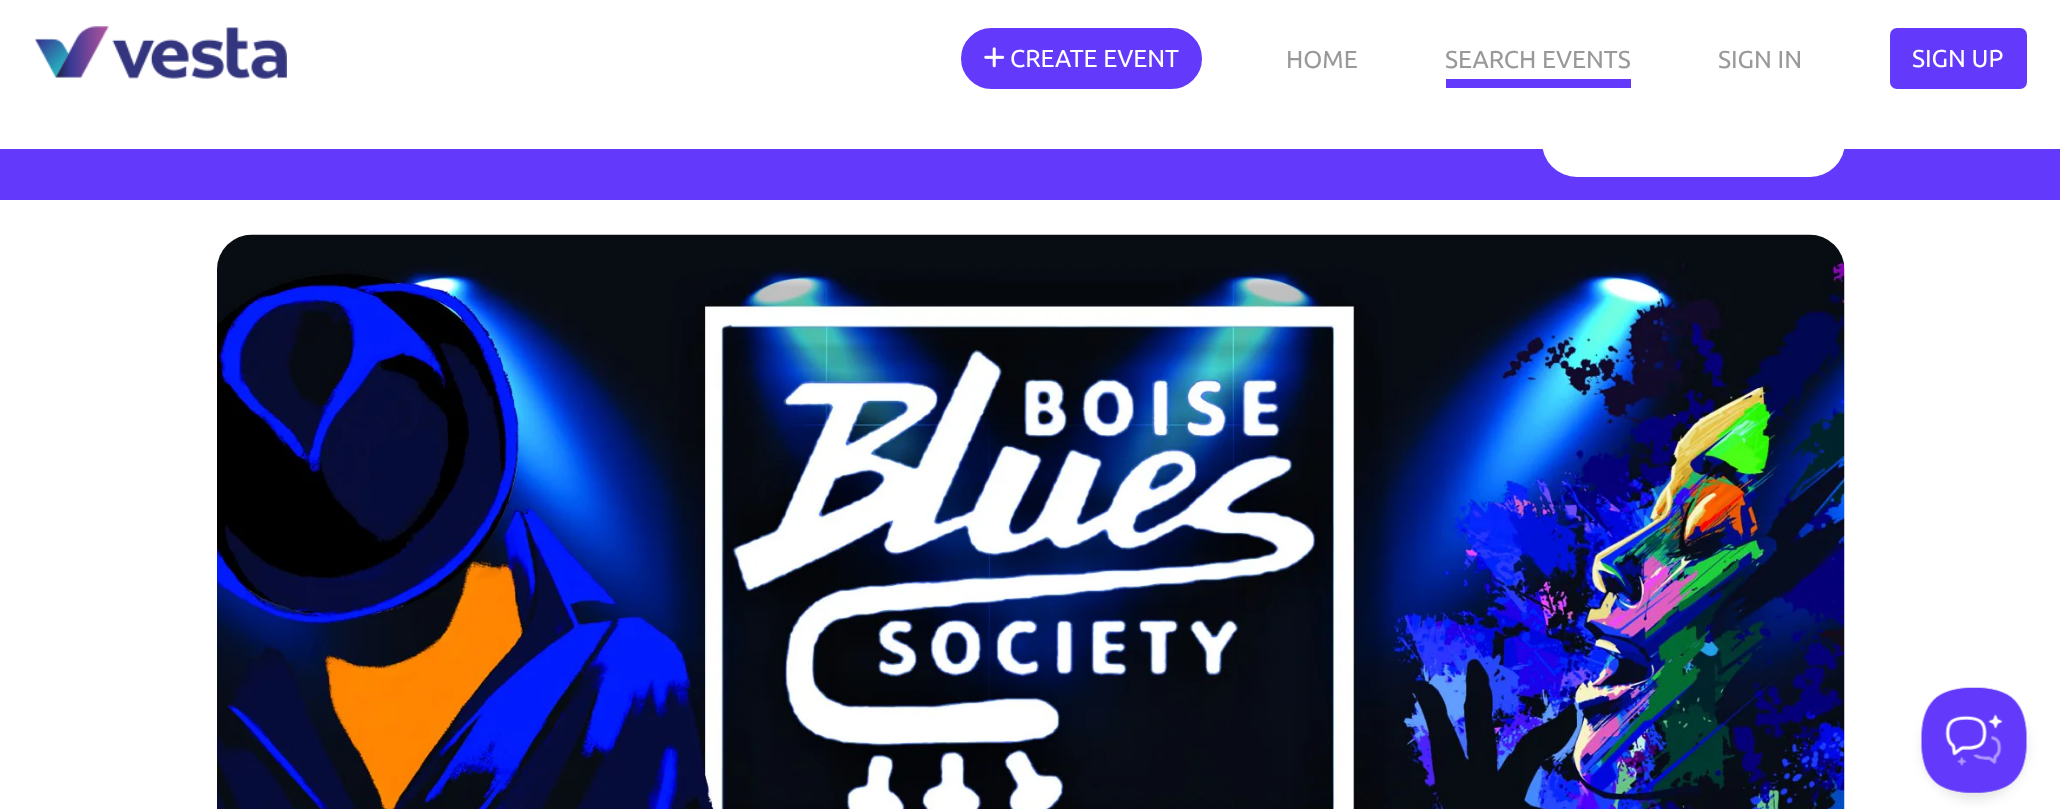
async function draw(canvas) {
  canvas.width = 2060;
  canvas.height = 809;
  const ctx = canvas.getContext('2d');
  ctx.miterLimit = 4;
  ctx.fontKerning = 'normal';
  function label(s, x, y, font, color) {
    ctx.font = font;
    ctx.fillStyle = color;
    ctx.fillText(s, x, y);
  }
  function rect(x, y, w, h, color) {
    ctx.fillStyle = color;
    ctx.fillRect(x, y, w, h);
  }
  function roundedRect(x, y, w, h, r, color) {
    ctx.fillStyle = color;
    ctx.beginPath();
    ctx.roundRect(x, y, w, h, r);
    ctx.fill();
  }
  async function image(src, x, y, w, h) {
    const img = new Image();
    img.src = src;
    await img.decode();
    ctx.drawImage(img, x, y, w, h);
  }

  rect(0, 0, 2060, 809, '#fff');
  await image('assets/img1.png', 35, 26, 252, 53);
  ctx.fillStyle = '#633afb';
  ctx.beginPath();
  ctx.roundRect(962, 29, 239, 59, 29.5);
  ctx.fill();
  ctx.strokeStyle = '#633afb';
  ctx.lineWidth = 2;
  ctx.stroke();
  await image('assets/img2.png', 984, 47, 21, 21);
  label('CREATE EVENT', 1010, 67, '24.5px Ubuntu', '#fff');
  label('HOME', 1286, 68, '24.5px Ubuntu', '#999');
  rect(1446, 79, 185, 9, '#633afb');
  label('SEARCH EVENTS', 1445, 68, '24.5px Ubuntu', '#999');
  label('SIGN IN', 1718, 68, '24.5px Ubuntu', '#999');
  ctx.fillStyle = '#633afb';
  ctx.beginPath();
  ctx.roundRect(1891, 29, 135, 59, 6);
  ctx.fill();
  ctx.stroke();
  label('SIGN UP', 1912, 67, '24.5px Ubuntu', '#fff');
  rect(0, 149, 2060, 51, '#633afb');
  roundedRect(1542, 107, 303, 70, 35, '#fff');
  await image('assets/img3.png', 217, 234, 1628, 575);
  ctx.fillStyle = '#0000001a';
  ctx.filter = 'blur(6px)';
  ctx.beginPath();
  ctx.roundRect(1922, 695, 105, 105, 52.5);
  ctx.fill();
  ctx.filter = 'none';
  await image('assets/img4.png', 1921, 687, 106, 106);
}

draw(document.querySelector('canvas'));
